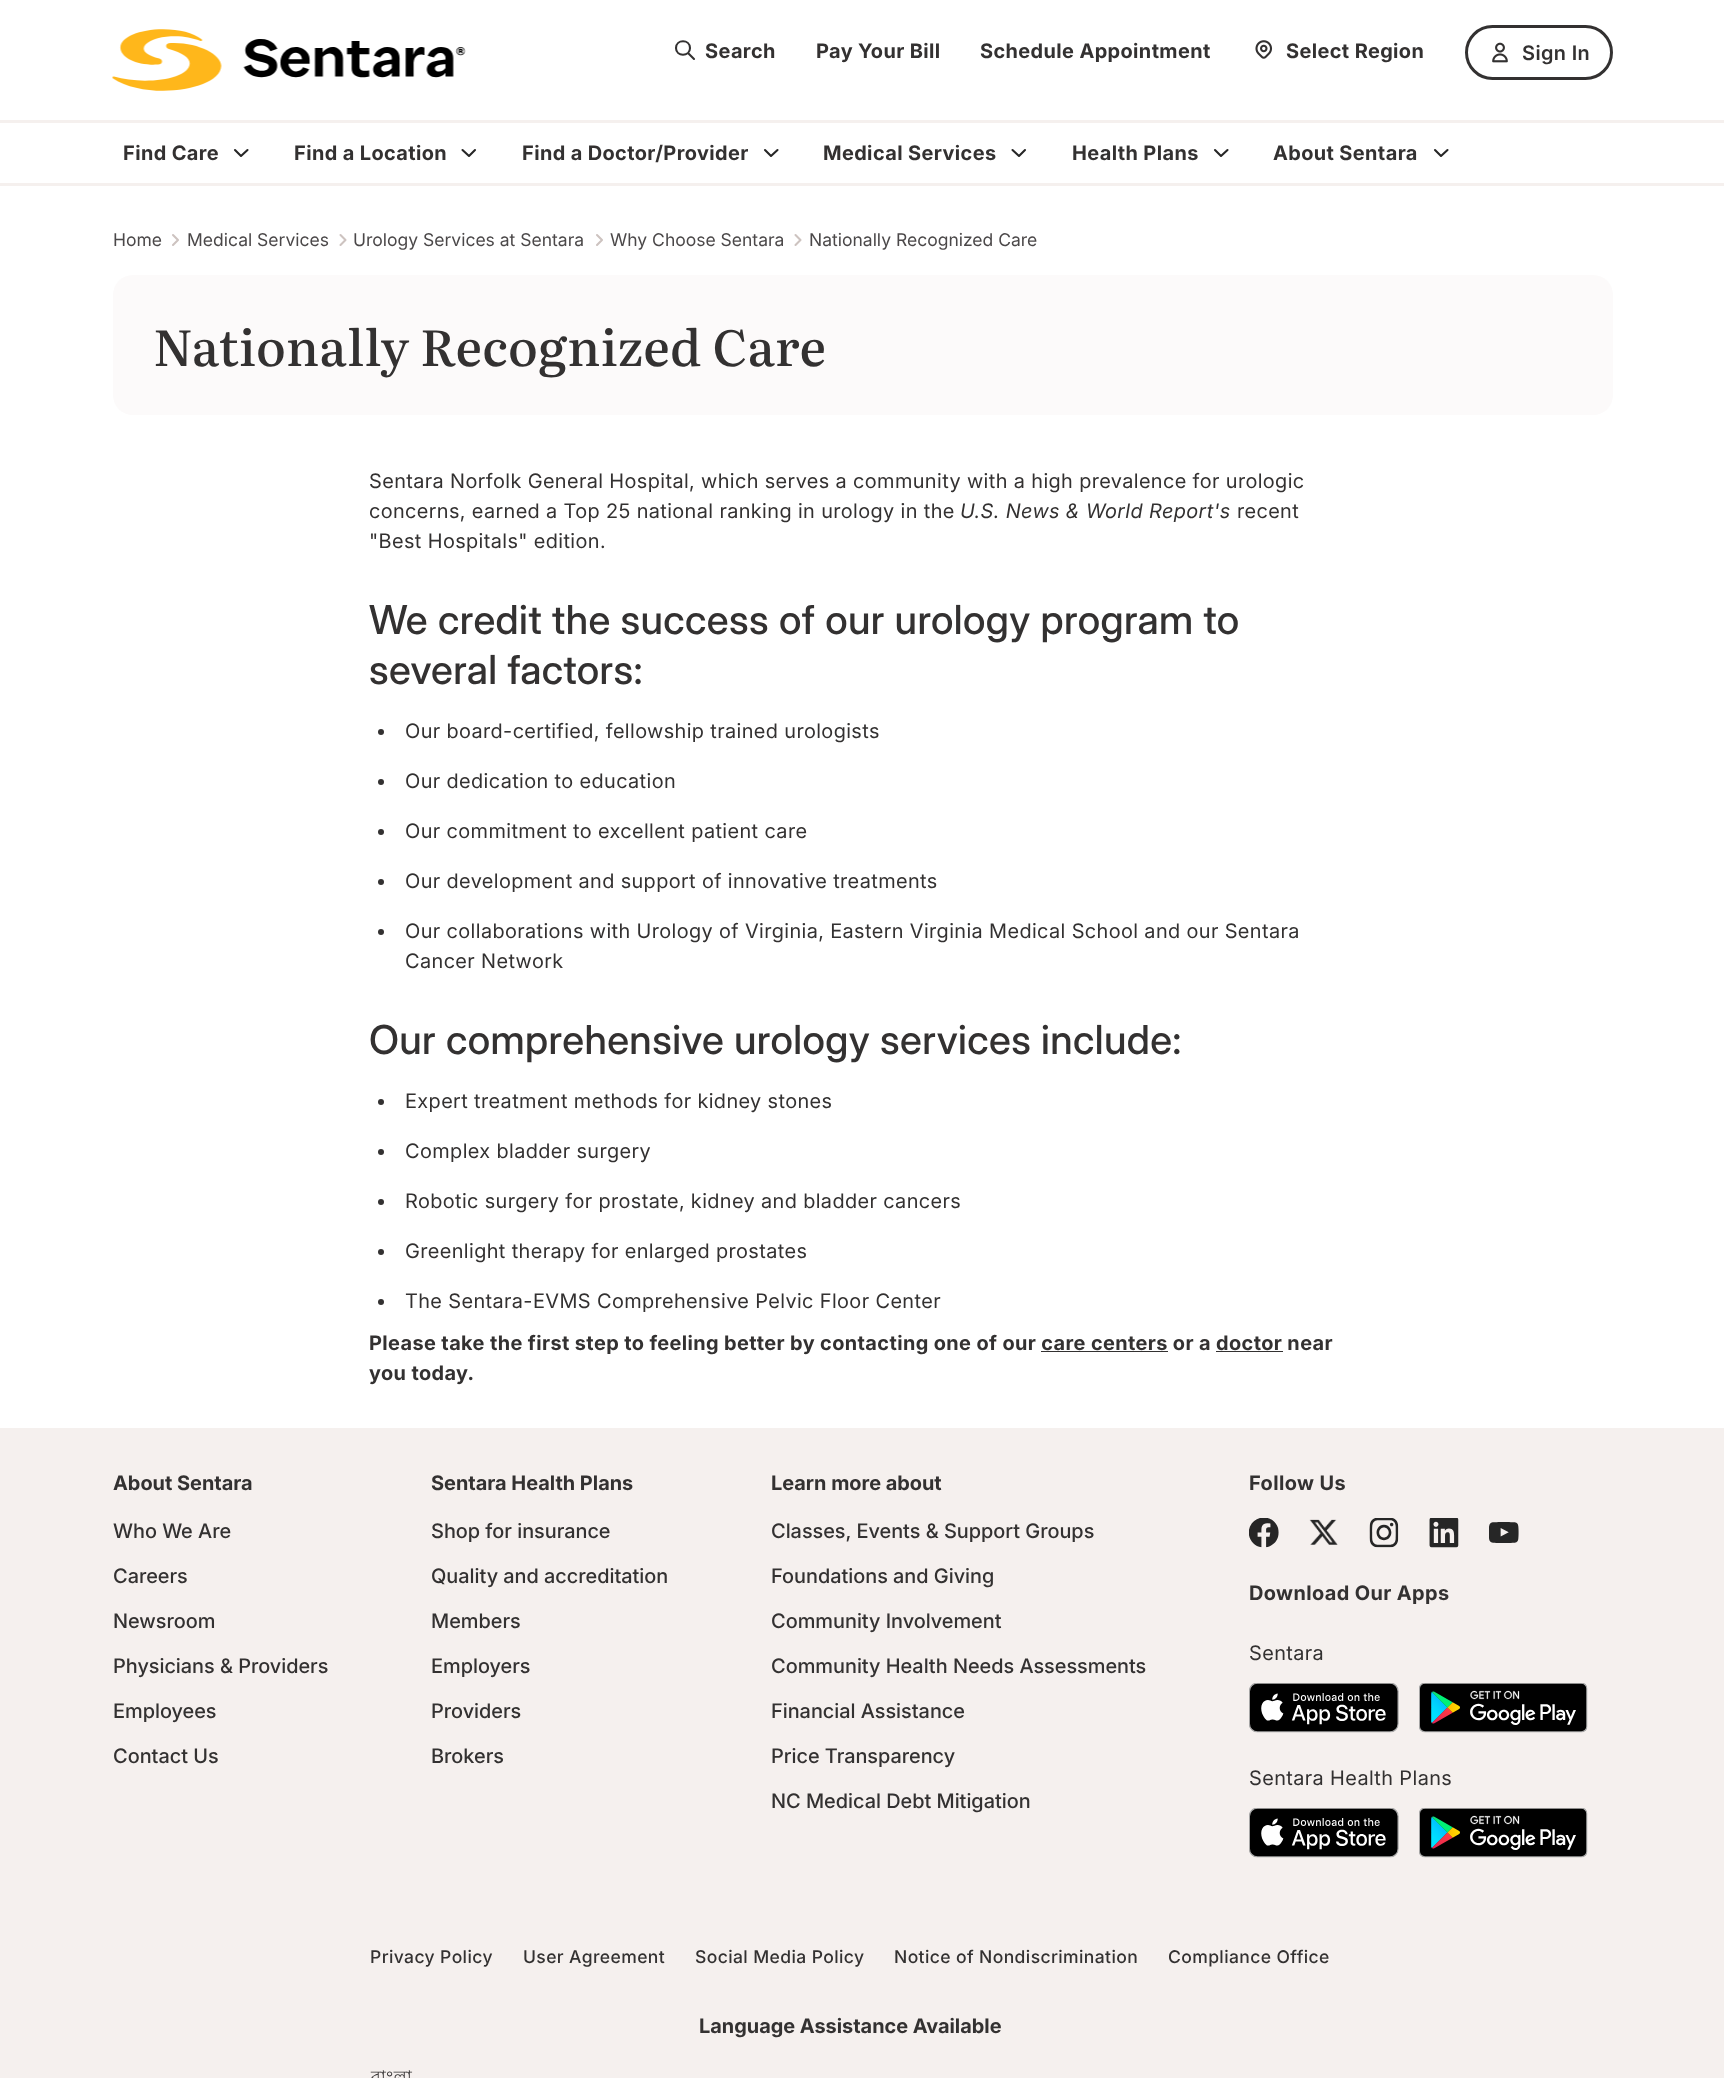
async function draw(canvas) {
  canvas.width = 1724;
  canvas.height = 2078;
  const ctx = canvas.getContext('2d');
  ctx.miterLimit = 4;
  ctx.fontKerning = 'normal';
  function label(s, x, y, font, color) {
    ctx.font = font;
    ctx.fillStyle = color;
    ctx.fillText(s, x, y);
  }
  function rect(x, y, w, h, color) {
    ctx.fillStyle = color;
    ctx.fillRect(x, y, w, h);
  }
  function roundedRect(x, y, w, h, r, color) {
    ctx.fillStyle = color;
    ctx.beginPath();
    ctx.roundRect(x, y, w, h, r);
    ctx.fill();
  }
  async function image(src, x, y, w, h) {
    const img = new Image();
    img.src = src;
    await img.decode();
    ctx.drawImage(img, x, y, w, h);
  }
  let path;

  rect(0, 0, 1724, 2078, '#fff');
  rect(0, 120, 1724, 3, '#f5f0ee');
  await image('assets/img1.png', 112, 29, 354, 62);
  path = new Path2D('M694 59L688 53M690 48C690 57 676 57 676 48C676 39 690 39 690 48Z');
  ctx.strokeStyle = '#333131';
  ctx.lineWidth = 2.1;
  ctx.lineCap = 'round';
  ctx.lineJoin = 'round';
  ctx.stroke(path);
  ctx.letterSpacing = '0.4px';
  label('Search', 705, 58, 'bold 20px Inter', '#333131');
  label('Pay Your Bill', 816, 58, 'bold 20px Inter', '#333131');
  label('Schedule Appointment', 980, 58, 'bold 20px Inter', '#333131');
  await image('assets/img2.png', 1255, 40, 18, 19);
  label('Select Region', 1286, 58, 'bold 20px Inter', '#333131');
  ctx.beginPath();
  ctx.roundRect(1466.5, 26.5, 145, 52, 26);
  ctx.lineWidth = 3;
  ctx.lineJoin = 'miter';
  ctx.stroke();
  await image('assets/img3.png', 1492, 42, 16, 21);
  label('Sign In', 1522, 60, '600 20px Inter', '#333131');
  rect(0, 183, 1724, 3, '#f5f0ee');
  label('Find Care', 123, 160, 'bold 20px Inter', '#333131');
  path = new Path2D('M247.5 150L241 156L235 150');
  ctx.strokeStyle = '#262626';
  ctx.lineWidth = 2.1;
  ctx.lineJoin = 'round';
  ctx.stroke(path);
  label('Find a Location', 294, 160, 'bold 20px Inter', '#333131');
  path = new Path2D('M475 150L469 156L462.5 150');
  ctx.stroke(path);
  label('Find a Doctor/Provider', 522, 160, 'bold 20px Inter', '#333131');
  path = new Path2D('M777.5 150L771 156L765 150');
  ctx.stroke(path);
  label('Medical Services', 823, 160, 'bold 20px Inter', '#333131');
  path = new Path2D('M1025 150L1019 156L1012.5 150');
  ctx.stroke(path);
  label('Health Plans', 1072, 160, 'bold 20px Inter', '#333131');
  path = new Path2D('M1227.5 150L1221 156L1215 150');
  ctx.stroke(path);
  label('About Sentara', 1273, 160, 'bold 20px Inter', '#333131');
  path = new Path2D('M1447.5 150L1441 156L1435 150');
  ctx.stroke(path);
  ctx.letterSpacing = '0px';
  label('Home', 113, 246, '17.5px Inter', '#4b4849');
  path = new Path2D('M173 235L178 240L173 245');
  ctx.strokeStyle = '#cdc3c0';
  ctx.stroke(path);
  label('Medical Services', 187, 246, '17.5px Inter', '#4b4849');
  path = new Path2D('M340.5 235L345.5 240L340.5 245');
  ctx.stroke(path);
  label('Urology Services at Sentara', 353, 246, '17.5px Inter', '#4b4849');
  path = new Path2D('M597 235L602 240L597 245');
  ctx.stroke(path);
  label('Why Choose Sentara', 610, 246, '17.5px Inter', '#4b4849');
  path = new Path2D('M795.5 235L800.5 240L795.5 245');
  ctx.stroke(path);
  label('Nationally Recognized Care', 809, 246, '17.5px Inter', '#4b4849');
  roundedRect(113, 275, 1500, 140, 20, '#fcfafa');
  ctx.letterSpacing = '0.4px';
  label('Nationally Recognized Care', 153, 366, '500 50px Literata', '#333131');
  label('Sentara Norfolk General Hospital, which serves a community with a high prevalence for urologic', 369, 488, '20px "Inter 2"', '#333131');
  label('concerns, earned a Top 25 national ranking in urology in the', 369, 518, '20px "Inter 2"', '#333131');
  label('U.S. News & World Report\'s', 960, 518, 'italic 20px Inter', '#333131');
  label('recent', 1237, 518, '20px "Inter 2"', '#333131');
  label('"Best Hospitals" edition.', 369, 548, '20px "Inter 2"', '#333131');
  label('We credit the success of our urology program to', 369, 634, '500 40px Inter', '#333131');
  label('several factors:', 369, 684, '500 40px Inter', '#333131');
  ctx.beginPath();
  ctx.arc(381, 732, 3, 0, 2 * Math.PI);
  ctx.fill();
  label('Our board-certified, fellowship trained urologists', 405, 738, '20px "Inter 2"', '#333131');
  ctx.beginPath();
  ctx.arc(381, 782, 3, 0, 2 * Math.PI);
  ctx.fill();
  label('Our dedication to education', 405, 788, '20px "Inter 2"', '#333131');
  ctx.beginPath();
  ctx.arc(381, 832, 3, 0, 2 * Math.PI);
  ctx.fill();
  label('Our commitment to excellent patient care', 405, 838, '20px "Inter 2"', '#333131');
  ctx.beginPath();
  ctx.arc(381, 882, 3, 0, 2 * Math.PI);
  ctx.fill();
  label('Our development and support of innovative treatments', 405, 888, '20px "Inter 2"', '#333131');
  ctx.beginPath();
  ctx.arc(381, 932, 3, 0, 2 * Math.PI);
  ctx.fill();
  label('Our collaborations with Urology of Virginia, Eastern Virginia Medical School and our Sentara', 405, 938, '20px "Inter 2"', '#333131');
  label('Cancer Network', 405, 968, '20px "Inter 2"', '#333131');
  label('Our comprehensive urology services include:', 369, 1054, '500 40px Inter', '#333131');
  ctx.beginPath();
  ctx.arc(381, 1102, 3, 0, 2 * Math.PI);
  ctx.fill();
  label('Expert treatment methods for kidney stones', 405, 1108, '20px "Inter 2"', '#333131');
  ctx.beginPath();
  ctx.arc(381, 1152, 3, 0, 2 * Math.PI);
  ctx.fill();
  label('Complex bladder surgery', 405, 1158, '20px "Inter 2"', '#333131');
  ctx.beginPath();
  ctx.arc(381, 1202, 3, 0, 2 * Math.PI);
  ctx.fill();
  label('Robotic surgery for prostate, kidney and bladder cancers', 405, 1208, '20px "Inter 2"', '#333131');
  ctx.beginPath();
  ctx.arc(381, 1252, 3, 0, 2 * Math.PI);
  ctx.fill();
  label('Greenlight therapy for enlarged prostates', 405, 1258, '20px "Inter 2"', '#333131');
  ctx.beginPath();
  ctx.arc(381, 1302, 3, 0, 2 * Math.PI);
  ctx.fill();
  label('The Sentara-EVMS Comprehensive Pelvic Floor Center', 405, 1308, '20px "Inter 2"', '#333131');
  label('Please take the first step to feeling better by contacting one of our care centers or a doctor near', 369, 1350, 'bold 20px Inter', '#333131');
  rect(1041, 1351, 127, 1, '#333131');
  rect(1216, 1351, 67, 1, '#333131');
  label('you today.', 369, 1380, 'bold 20px Inter', '#333131');
  rect(0, 1428, 1724, 650, '#f5f0ee');
  ctx.letterSpacing = '0px';
  label('About Sentara', 113, 1490, 'bold 20px Inter', '#333131');
  label('Who We Are', 113, 1538, '500 20px "Inter 2"', '#333131');
  label('Careers', 113, 1583, '500 20px "Inter 2"', '#333131');
  label('Newsroom', 113, 1628, '500 20px "Inter 2"', '#333131');
  label('Physicians & Providers', 113, 1673, '500 20px "Inter 2"', '#333131');
  label('Employees', 113, 1718, '500 20px "Inter 2"', '#333131');
  label('Contact Us', 113, 1763, '500 20px "Inter 2"', '#333131');
  label('Sentara Health Plans', 431, 1490, 'bold 20px Inter', '#333131');
  label('Shop for insurance', 431, 1538, '500 20px "Inter 2"', '#333131');
  label('Quality and accreditation', 431, 1583, '500 20px "Inter 2"', '#333131');
  label('Members', 431, 1628, '500 20px "Inter 2"', '#333131');
  label('Employers', 431, 1673, '500 20px "Inter 2"', '#333131');
  label('Providers', 431, 1718, '500 20px "Inter 2"', '#333131');
  label('Brokers', 431, 1763, '500 20px "Inter 2"', '#333131');
  label('Learn more about', 771, 1490, 'bold 20px Inter', '#333131');
  label('Classes, Events & Support Groups', 771, 1538, '500 20px "Inter 2"', '#333131');
  label('Foundations and Giving', 771, 1583, '500 20px "Inter 2"', '#333131');
  label('Community Involvement', 771, 1628, '500 20px "Inter 2"', '#333131');
  label('Community Health Needs Assessments', 771, 1673, '500 20px "Inter 2"', '#333131');
  label('Financial Assistance', 771, 1718, '500 20px "Inter 2"', '#333131');
  label('Price Transparency', 771, 1763, '500 20px "Inter 2"', '#333131');
  label('NC Medical Debt Mitigation', 771, 1808, '500 20px "Inter 2"', '#333131');
  ctx.letterSpacing = '0.4px';
  label('Follow Us', 1249, 1490, 'bold 20px Inter', '#333131');
  await image('assets/img4.png', 1249, 1518, 30, 30);
  await image('assets/img5.png', 1309, 1519, 29, 26);
  await image('assets/img6.png', 1369, 1518, 30, 30);
  await image('assets/img7.png', 1429, 1518, 30, 30);
  await image('assets/img8.png', 1489, 1522, 30, 21);
  label('Download Our Apps', 1249, 1600, 'bold 20px Inter', '#333131');
  label('Sentara', 1249, 1660, '20px "Inter 2"', '#333131');
  await image('assets/img9.png', 1249, 1683, 150, 50);
  await image('assets/img10.png', 1419, 1683, 169, 50);
  label('Sentara Health Plans', 1249, 1785, '20px "Inter 2"', '#333131');
  await image('assets/img9.png', 1249, 1808, 150, 50);
  await image('assets/img10.png', 1419, 1808, 169, 50);
  label('Privacy Policy', 370, 1963, '500 17.5px "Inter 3"', '#333131');
  label('User Agreement', 523, 1963, '500 17.5px "Inter 3"', '#333131');
  label('Social Media Policy', 695, 1963, '500 17.5px "Inter 3"', '#333131');
  label('Notice of Nondiscrimination', 894, 1963, '500 17.5px "Inter 3"', '#333131');
  label('Compliance Office', 1168, 1963, '500 17.5px "Inter 3"', '#333131');
  ctx.letterSpacing = '0px';
  label('Language Assistance Available', 699, 2033, 'bold 20px Inter', '#333131');
  ctx.letterSpacing = '0.4px';
  label('বাংলা', 371, 2083, '17.5px Lohit Bengali', '#333131');
}

draw(document.querySelector('canvas'));
